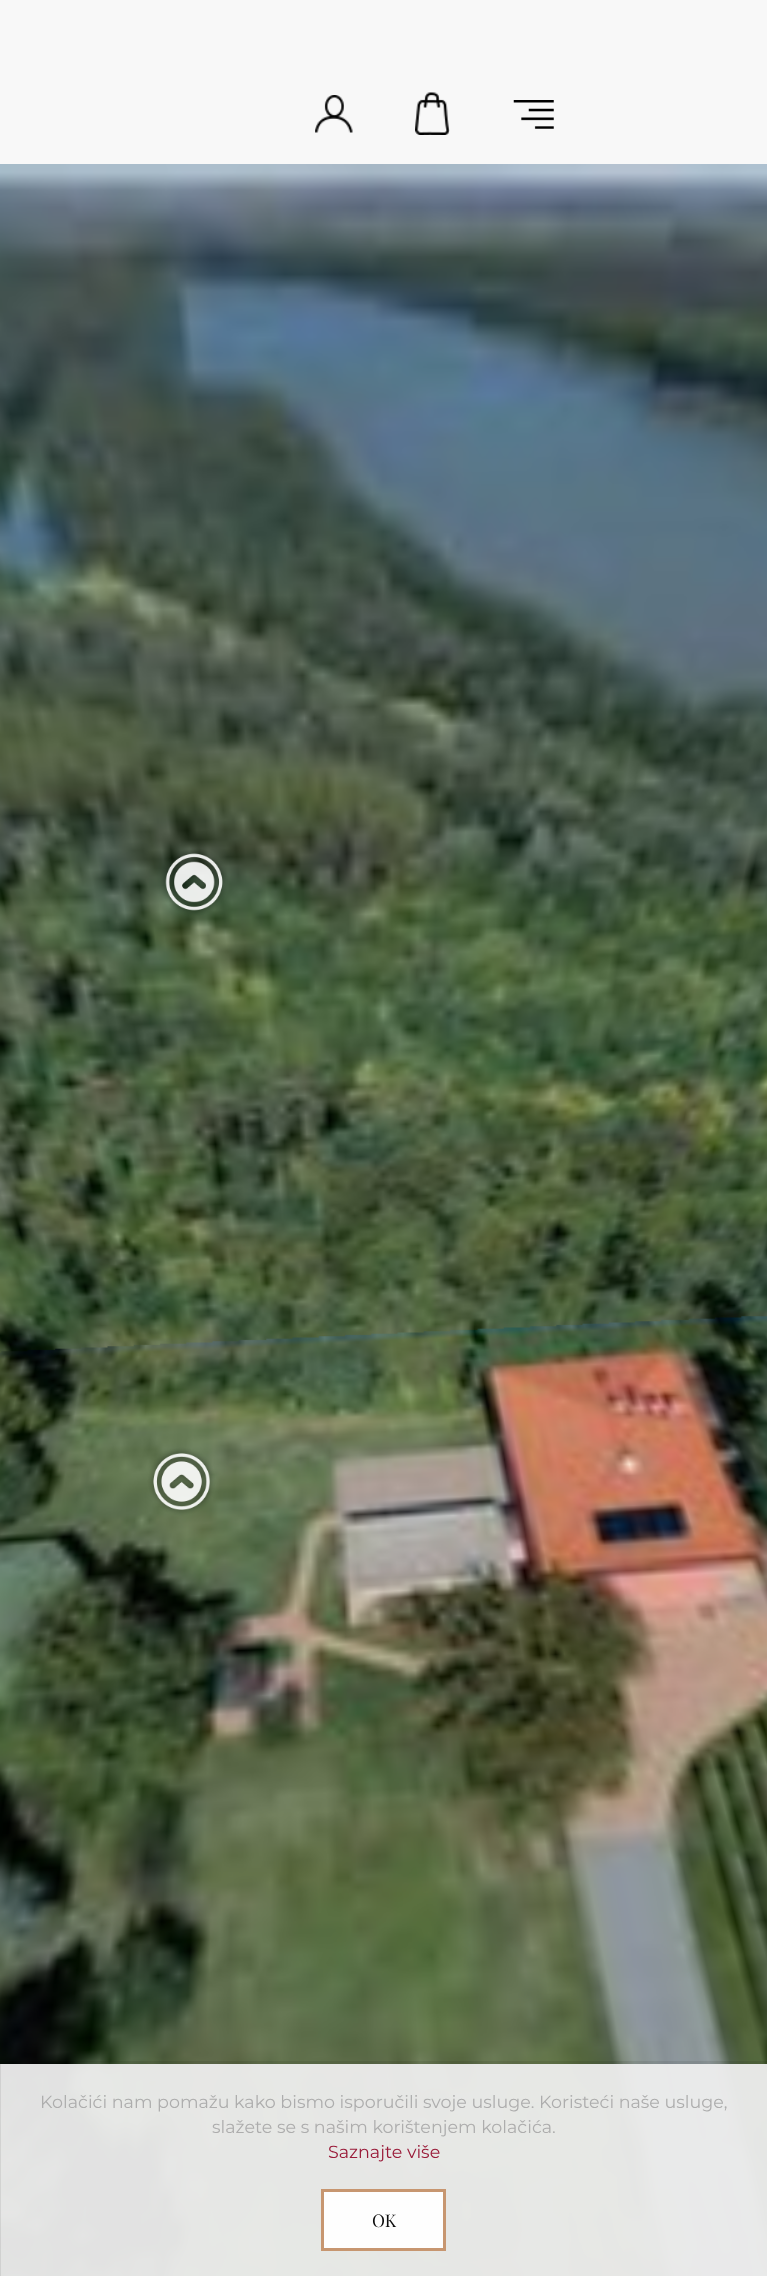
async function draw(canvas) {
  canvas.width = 767;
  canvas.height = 2276;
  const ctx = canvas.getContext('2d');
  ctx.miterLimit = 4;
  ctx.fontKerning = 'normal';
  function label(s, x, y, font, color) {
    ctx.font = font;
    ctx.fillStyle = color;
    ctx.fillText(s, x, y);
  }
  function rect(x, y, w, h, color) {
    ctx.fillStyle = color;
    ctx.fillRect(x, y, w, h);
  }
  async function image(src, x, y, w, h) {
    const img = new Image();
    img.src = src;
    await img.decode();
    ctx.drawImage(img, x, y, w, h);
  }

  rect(0, 0, 767, 2276, '#f8f8f8');
  await image('assets/img1.png', 315, 95, 38, 38);
  await image('assets/img2.png', 415, 92, 35, 43);
  await image('assets/img3.png', 513, 100, 41, 29);
  await image('assets/img4.png', 0, 164, 767, 2112);
  rect(0, 2064, 767, 212, '#eeeeeef2');
  ctx.fillStyle = '#fefefe';
  ctx.beginPath();
  ctx.rect(322.5, 2190.5, 122, 59);
  ctx.fill();
  ctx.strokeStyle = '#c79670';
  ctx.lineWidth = 3;
  ctx.stroke();
  ctx.strokeStyle = '#00000014';
  ctx.strokeRect(-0.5, 2062.5, 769, 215);
  label('Kolačići nam pomažu kako bismo isporučili svoje usluge. Koristeći naše usluge,', 40, 2108, '100 17.5px Montserrat', '#adadad');
  label('slažete se s našim korištenjem kolačića.', 212, 2133, '100 17.5px Montserrat', '#adadad');
  label('Saznajte više', 328, 2158, '100 17.5px Montserrat', '#9a1b39');
  label('OK', 372, 2227, '17.5px Playfair Display', '#0d0d0d');
}

draw(document.querySelector('canvas'));
